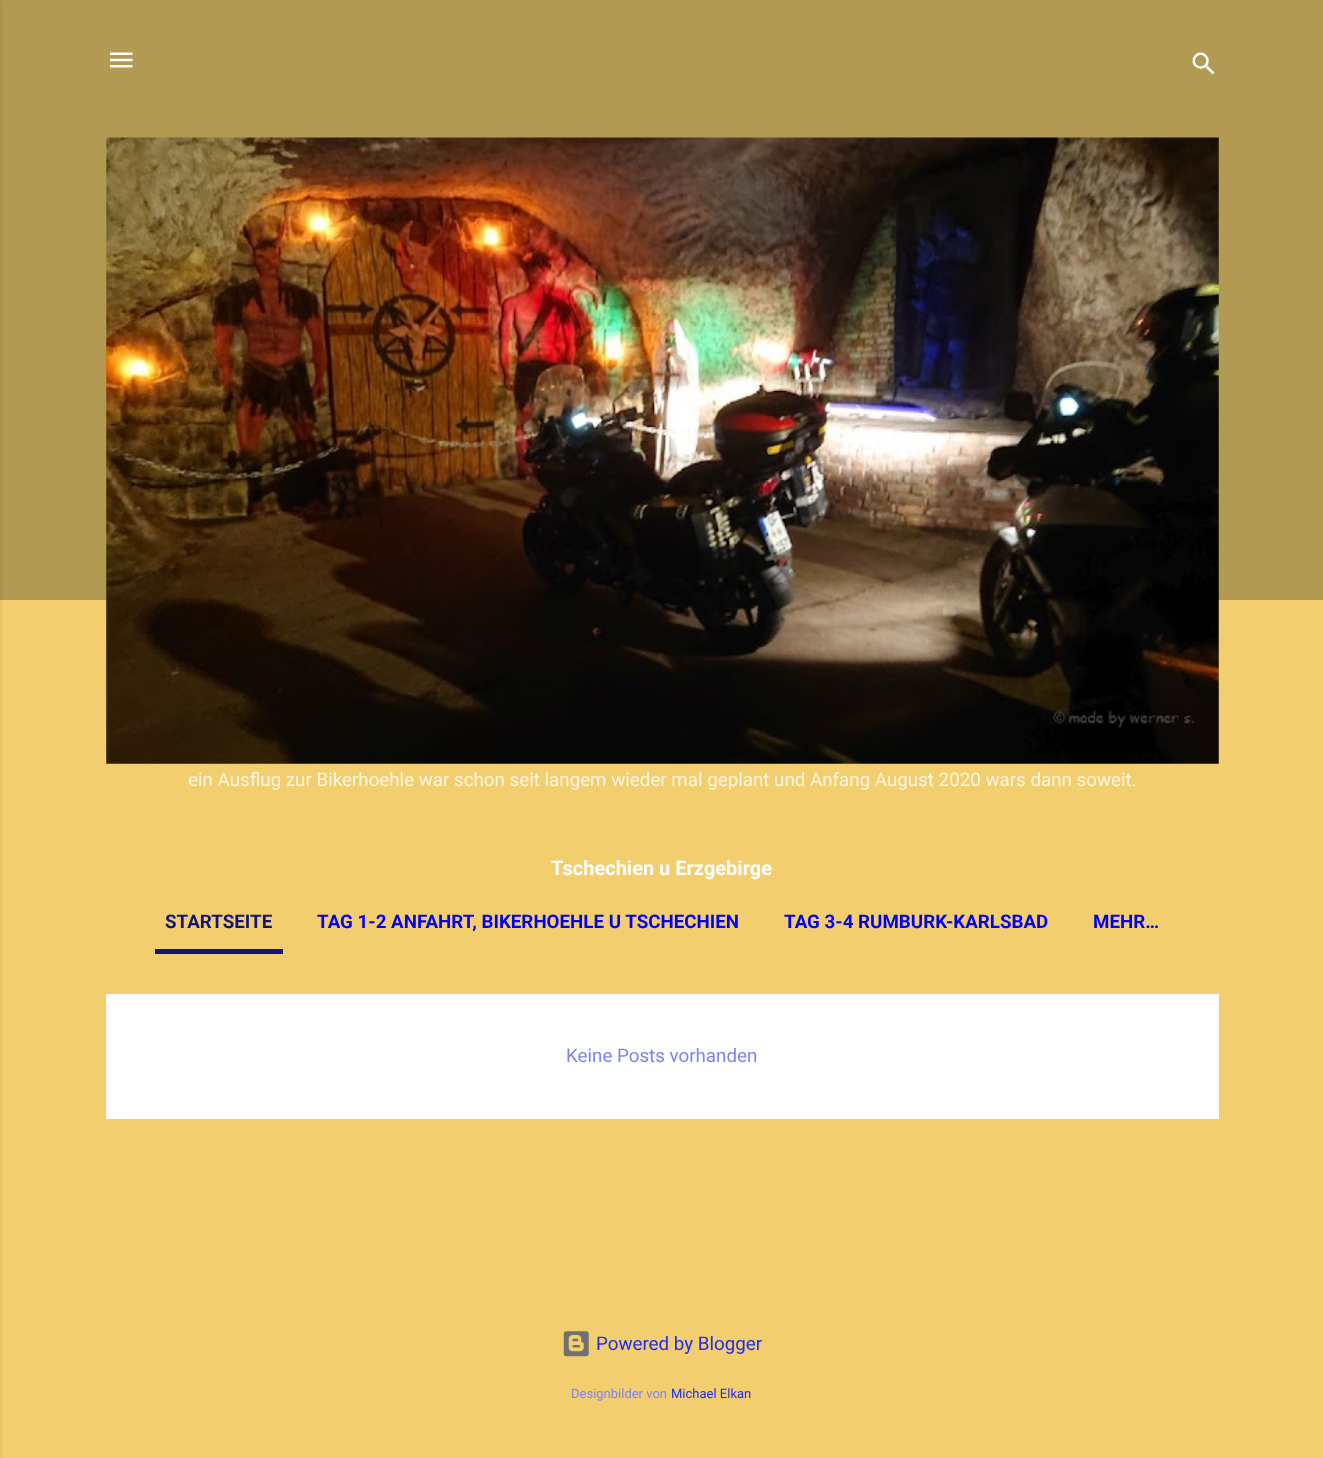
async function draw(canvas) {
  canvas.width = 1323;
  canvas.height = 1458;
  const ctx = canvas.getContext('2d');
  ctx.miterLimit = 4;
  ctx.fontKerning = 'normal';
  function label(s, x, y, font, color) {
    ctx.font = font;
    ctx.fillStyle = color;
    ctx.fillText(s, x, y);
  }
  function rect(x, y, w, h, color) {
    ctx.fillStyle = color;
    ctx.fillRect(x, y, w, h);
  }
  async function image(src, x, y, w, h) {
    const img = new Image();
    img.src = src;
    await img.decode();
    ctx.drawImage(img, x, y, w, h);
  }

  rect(0, 0, 1323, 1458, '#f2ce6f');
  rect(0, 0, 1323, 600, '#b29a53');
  ctx.fillStyle = '#0000001a';
  ctx.filter = 'blur(2px)';
  ctx.beginPath();
  ctx.rect(-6, 1, 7, 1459);
  ctx.fill();
  ctx.filter = 'none';
  await image('assets/img1.png', 110, 52, 23, 16);
  await image('assets/img2.png', 1192, 52, 23, 23);
  await image('assets/img3.png', 106, 137, 1113, 627);
  label('ein Ausflug zur Bikerhoehle war schon seit langem wieder mal geplant und Anfang August 2020 wars dann soweit.', 188, 786, '18.75px Roboto', '#fcf5e2');
  label('Tschechien u Erzgebirge', 551, 875, 'bold 20px Roboto', '#fff');
  rect(155, 949, 128, 5, '#101579');
  label('STARTSEITE', 165, 928, 'bold 18.75px Roboto', '#101579');
  label('TAG 1-2 ANFAHRT, BIKERHOEHLE U TSCHECHIEN', 317, 928, 'bold 18.75px Roboto', '#00f');
  label('TAG 3-4 RUMBURK-KARLSBAD', 784, 928, 'bold 18.75px Roboto', '#00f');
  label('MEHR…', 1093, 928, 'bold 18.75px Roboto', '#00f');
  rect(106, 994, 1113, 125, '#fff');
  label('Keine Posts vorhanden', 566, 1062, '18.75px Roboto', '#7e83f4');
  await image('assets/img4.png', 563, 1331, 26, 26);
  label('Powered by Blogger', 596, 1350, '18.75px Roboto', '#212bf3');
  label('Designbilder von', 571, 1398, '13px Roboto', '#7e83f4');
  label('Michael Elkan', 671, 1398, '13px Roboto', '#212bf3');
}

draw(document.querySelector('canvas'));
